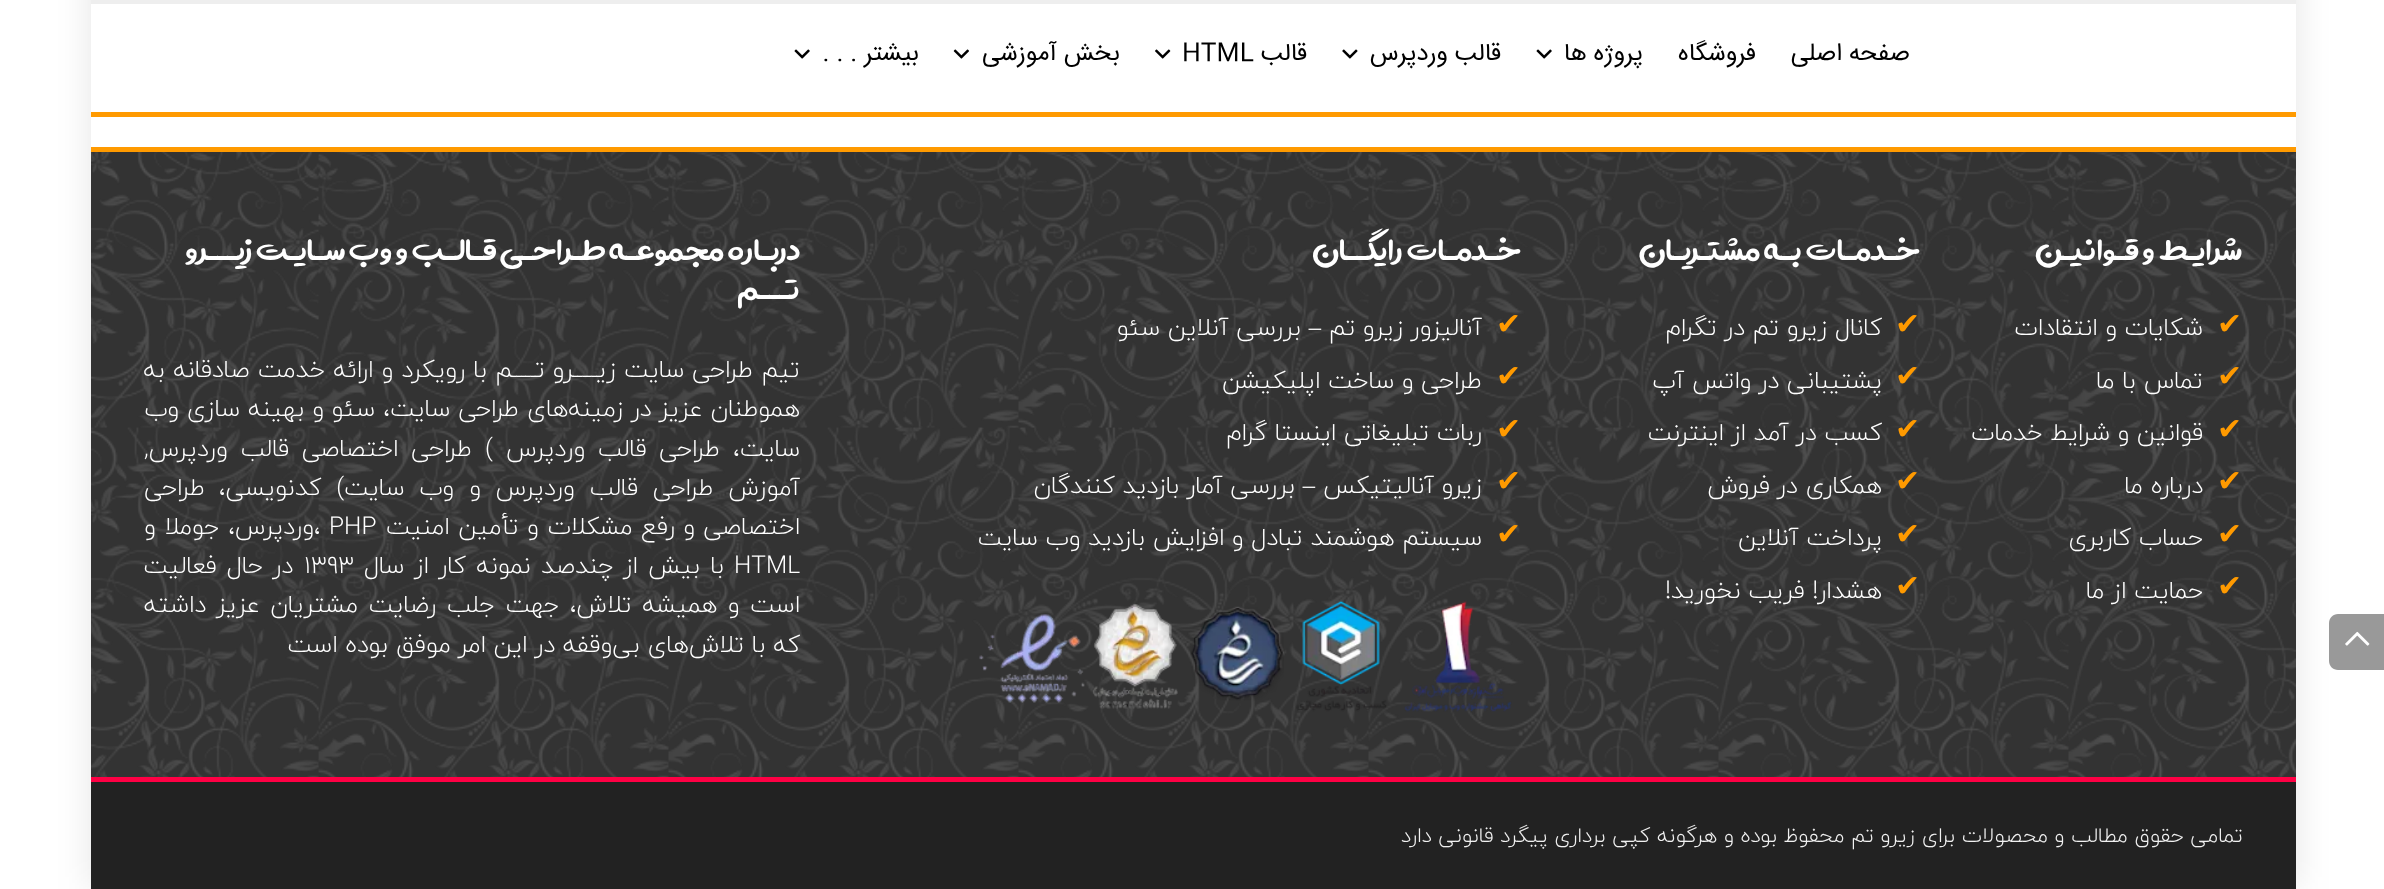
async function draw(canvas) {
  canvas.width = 2384;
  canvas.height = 889;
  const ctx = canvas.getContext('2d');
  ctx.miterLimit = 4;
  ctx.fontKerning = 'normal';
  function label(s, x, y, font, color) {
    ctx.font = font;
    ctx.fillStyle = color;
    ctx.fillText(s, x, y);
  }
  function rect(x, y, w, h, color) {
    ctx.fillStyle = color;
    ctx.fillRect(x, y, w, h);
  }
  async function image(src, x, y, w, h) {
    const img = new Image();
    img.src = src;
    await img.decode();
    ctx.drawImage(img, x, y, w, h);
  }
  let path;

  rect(0, 0, 2384, 889, '#fff');
  ctx.save();
  path = new Path2D('M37 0H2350V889H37ZM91-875H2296V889H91Z');
  ctx.clip(path, 'evenodd');
  ctx.fillStyle = '#0000001a';
  ctx.filter = 'blur(17.5px)';
  ctx.beginPath();
  ctx.rect(91, -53, 2205, 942);
  ctx.fill();
  ctx.filter = 'none';
  ctx.restore();
  ctx.fillStyle = '#999';
  path = new Path2D('M2338 614H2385V670H2338C2333 670 2329 666 2329 661V623C2329 618 2333 614 2338 614Z');
  ctx.fill(path);
  await image('assets/img1.png', 2345, 631, 25, 15);
  rect(91, 0, 2205, 4, '#eee');
  rect(91, 112, 2205, 5, '#ff9a00');
  ctx.direction = 'rtl';
  label('صفحه اصلی', 1910, 60, '24.5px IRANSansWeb', '#000');
  label('فروشگاه', 1756, 60, '24.5px IRANSansWeb', '#000');
  label('پروژه ها', 1643, 60, '24.5px IRANSansWeb', '#000');
  await image('assets/img2.png', 1536, 49, 16, 10);
  label('قالب وردپرس', 1501, 60, '24.5px IRANSansWeb', '#000');
  await image('assets/img3.png', 1342, 49, 16, 10);
  label('قالب', 1307, 60, '24.5px IRANSansWeb', '#000');
  ctx.direction = 'ltr';
  label('HTML', 1182, 60, '24.5px IRANSansWeb', '#000');
  await image('assets/img4.png', 1155, 49, 16, 10);
  ctx.direction = 'rtl';
  label('بخش آموزشی', 1120, 60, '24.5px IRANSansWeb', '#000');
  await image('assets/img5.png', 953, 49, 16, 10);
  label('بیشتر . . .', 919, 60, '24.5px IRANSansWeb', '#000');
  await image('assets/img2.png', 794, 49, 16, 10);
  rect(91, 152, 2205, 625, '#333');
  await image('assets/img6.png', 91, 152, 2205, 625);
  rect(91, 147, 2205, 5, '#ff9a00');
  rect(91, 777, 2205, 5, '#f04');
  label('شرایـط و قـوانیـن', 2242, 260, '42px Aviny', '#fff');
  ctx.direction = 'ltr';
  label('✔', 2217, 334, '30px DejaVu Sans', '#ff9a00');
  ctx.direction = 'rtl';
  label('شکایات و انتقادات', 2203, 335, '300 24.5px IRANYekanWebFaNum', '#fff');
  ctx.direction = 'ltr';
  label('✔', 2217, 386, '30px DejaVu Sans', '#ff9a00');
  ctx.direction = 'rtl';
  label('تماس با ما', 2203, 388, '300 24.5px IRANYekanWebFaNum', '#fff');
  ctx.direction = 'ltr';
  label('✔', 2217, 439, '30px DejaVu Sans', '#ff9a00');
  ctx.direction = 'rtl';
  label('قوانین و شرایط خدمات', 2203, 440, '300 24.5px IRANYekanWebFaNum', '#fff');
  ctx.direction = 'ltr';
  label('✔', 2217, 491, '30px DejaVu Sans', '#ff9a00');
  ctx.direction = 'rtl';
  label('درباره ما', 2203, 493, '300 24.5px IRANYekanWebFaNum', '#fff');
  ctx.direction = 'ltr';
  label('✔', 2217, 544, '30px DejaVu Sans', '#ff9a00');
  ctx.direction = 'rtl';
  label('حساب کاربری', 2203, 545, '300 24.5px IRANYekanWebFaNum', '#fff');
  ctx.direction = 'ltr';
  label('✔', 2217, 596, '30px DejaVu Sans', '#ff9a00');
  ctx.direction = 'rtl';
  label('حمایت از ما', 2203, 598, '300 24.5px IRANYekanWebFaNum', '#fff');
  label('خـدمـات بـه مشتـریـان', 1920, 260, '42px Aviny', '#fff');
  ctx.direction = 'ltr';
  label('✔', 1895, 334, '30px DejaVu Sans', '#ff9a00');
  ctx.direction = 'rtl';
  label('کانال زیرو تم در تگرام', 1882, 335, '300 24.5px IRANYekanWebFaNum', '#fff');
  ctx.direction = 'ltr';
  label('✔', 1895, 386, '30px DejaVu Sans', '#ff9a00');
  ctx.direction = 'rtl';
  label('پشتیبانی در واتس آپ', 1882, 388, '300 24.5px IRANYekanWebFaNum', '#fff');
  ctx.direction = 'ltr';
  label('✔', 1895, 439, '30px DejaVu Sans', '#ff9a00');
  ctx.direction = 'rtl';
  label('کسب در آمد از اینترنت', 1882, 440, '300 24.5px IRANYekanWebFaNum', '#fff');
  ctx.direction = 'ltr';
  label('✔', 1895, 491, '30px DejaVu Sans', '#ff9a00');
  ctx.direction = 'rtl';
  label('همکاری در فروش', 1882, 493, '300 24.5px IRANYekanWebFaNum', '#fff');
  ctx.direction = 'ltr';
  label('✔', 1895, 544, '30px DejaVu Sans', '#ff9a00');
  ctx.direction = 'rtl';
  label('پرداخت آنلاین', 1882, 545, '300 24.5px IRANYekanWebFaNum', '#fff');
  ctx.direction = 'ltr';
  label('✔', 1895, 596, '30px DejaVu Sans', '#ff9a00');
  ctx.direction = 'rtl';
  label('هشدار! فریب نخورید!', 1882, 598, '300 24.5px IRANYekanWebFaNum', '#fff');
  label('خـدمـات رایگــان', 1521, 260, '42px Aviny', '#fff');
  ctx.direction = 'ltr';
  label('✔', 1496, 334, '30px DejaVu Sans', '#ff9a00');
  ctx.direction = 'rtl';
  label('آنالیزور زیرو تم', 1482, 335, '300 24.5px IRANYekanWebFaNum', '#fff');
  label('–', 1321, 335, '24.5px Liberation Serif', '#fff');
  label('بررسی آنلاین سئو', 1301, 335, '300 24.5px IRANYekanWebFaNum', '#fff');
  ctx.direction = 'ltr';
  label('✔', 1496, 386, '30px DejaVu Sans', '#ff9a00');
  ctx.direction = 'rtl';
  label('طراحی و ساخت اپلیکیشن', 1482, 388, '300 24.5px IRANYekanWebFaNum', '#fff');
  ctx.direction = 'ltr';
  label('✔', 1496, 439, '30px DejaVu Sans', '#ff9a00');
  ctx.direction = 'rtl';
  label('ربات تبلیغاتی اینستا گرام', 1482, 440, '300 24.5px IRANYekanWebFaNum', '#fff');
  ctx.direction = 'ltr';
  label('✔', 1496, 491, '30px DejaVu Sans', '#ff9a00');
  ctx.direction = 'rtl';
  label('زیرو آنالیتیکس', 1482, 493, '300 24.5px IRANYekanWebFaNum', '#fff');
  label('–', 1315, 493, '24.5px Liberation Serif', '#fff');
  label('بررسی آمار بازدید کنندگان', 1295, 493, '300 24.5px IRANYekanWebFaNum', '#fff');
  ctx.direction = 'ltr';
  label('✔', 1496, 544, '30px DejaVu Sans', '#ff9a00');
  ctx.direction = 'rtl';
  label('سیستم هوشمند تبادل و افزایش بازدید وب سایت', 1482, 545, '300 24.5px IRANYekanWebFaNum', '#fff');
  await image('assets/img7.png', 979, 600, 533, 112);
  label('دربـاره مجموعـه طـراحـی قـالـب و وب سـایـت زیـــرو', 800, 260, '42px Aviny', '#fff');
  label('تـــم', 800, 299, '42px Aviny', '#fff');
  label('تیم', 800, 377, '300 24.5px IRANYekanWebFaNum', '#fff');
  label('طراحی سایت', 753, 377, '300 24.5px IRANYekanWebFaNum', '#fff');
  label('زیـــــرو تـــــم', 616, 377, '300 24.5px IRANYekanWebFaNum', '#fff');
  ctx.wordSpacing = '0.5px';
  label('با رویکرد و ارائه خدمت صادقانه به', 487, 377, '300 24.5px IRANYekanWebFaNum', '#fff');
  ctx.wordSpacing = '0.25px';
  label('هموطنان عزیز در زمینه‌های طراحی سایت،', 800, 416, '300 24.5px IRANYekanWebFaNum', '#fff');
  label('سئو و بهینه سازی', 375, 416, '300 24.5px IRANYekanWebFaNum', '#fff');
  ctx.wordSpacing = '0px';
  label('وب', 179, 416, '300 24.5px IRANYekanWebFaNum', '#fff');
  label('سایت،', 800, 456, '300 24.5px IRANYekanWebFaNum', '#fff');
  ctx.wordSpacing = '5px';
  label('طراحی قالب وردپرس', 720, 456, '300 24.5px IRANYekanWebFaNum', '#fff');
  ctx.wordSpacing = '0px';
  ctx.direction = 'ltr';
  label('(', 485, 456, '300 24.5px IRANYekanWebFaNum', '#fff');
  ctx.wordSpacing = '5px';
  ctx.direction = 'rtl';
  label('طراحی اختصاصی قالب وردپرس', 472, 456, '300 24.5px IRANYekanWebFaNum', '#fff');
  ctx.wordSpacing = '0px';
  ctx.direction = 'ltr';
  label(',', 144, 456, '300 24.5px IRANYekanWebFaNum', '#fff');
  ctx.wordSpacing = '7px';
  ctx.direction = 'rtl';
  label('آموزش طراحی قالب وردپرس', 800, 495, '300 24.5px IRANYekanWebFaNum', '#fff');
  ctx.wordSpacing = '0px';
  label('و', 481, 495, '300 24.5px IRANYekanWebFaNum', '#fff');
  ctx.wordSpacing = '7px';
  label('وب سایت', 454, 495, '300 24.5px IRANYekanWebFaNum', '#fff');
  label(') کدنویسی،', 344, 495, '300 24.5px IRANYekanWebFaNum', '#fff');
  ctx.wordSpacing = '0px';
  label('طراحی', 205, 495, '300 24.5px IRANYekanWebFaNum', '#fff');
  label('اختصاصی', 800, 534, '300 24.5px IRANYekanWebFaNum', '#fff');
  ctx.wordSpacing = '1px';
  label('و رفع مشکلات و تأمین امنیت', 695, 534, '300 24.5px IRANYekanWebFaNum', '#fff');
  ctx.wordSpacing = '0px';
  ctx.direction = 'ltr';
  label('PHP', 329, 534, '300 24.5px IRANYekanWebFaNum', '#fff');
  label('،', 314, 534, '300 24.5px IRANYekanWebFaNum', '#fff');
  ctx.direction = 'rtl';
  label('وردپرس', 314, 534, '300 24.5px IRANYekanWebFaNum', '#fff');
  ctx.wordSpacing = '1px';
  label('، جوملا و', 235, 534, '300 24.5px IRANYekanWebFaNum', '#fff');
  ctx.wordSpacing = '0px';
  ctx.direction = 'ltr';
  label('HTML', 734, 573, '300 24.5px IRANYekanWebFaNum', '#fff');
  ctx.wordSpacing = '2.5px';
  ctx.direction = 'rtl';
  label('با بیش از چندصد نمونه کار از سال', 724, 573, '300 24.5px IRANYekanWebFaNum', '#fff');
  ctx.wordSpacing = '0px';
  ctx.direction = 'ltr';
  label('1393', 304, 573, '300 24.5px IRANYekanWebFaNum', '#fff');
  ctx.wordSpacing = '2.5px';
  ctx.direction = 'rtl';
  label('در حال فعالیت', 293, 573, '300 24.5px IRANYekanWebFaNum', '#fff');
  ctx.wordSpacing = '2.75px';
  label('است و همیشه تلاش، جهت جلب رضایت مشتریان عزیز داشته', 800, 612, '300 24.5px IRANYekanWebFaNum', '#fff');
  ctx.wordSpacing = '0px';
  label('که با تلاش‌های بی‌وقفه در این امر موفق بوده است', 800, 652, '300 24.5px IRANYekanWebFaNum', '#fff');
  rect(91, 782, 2205, 107, '#222');
  label('تمامی حقوق مطالب و محصولات برای زیرو تم محفوظ بوده و هرگونه کپی برداری پیگرد قانونی دارد', 2243, 842, '300 21px IRANYekanWebFaNum', '#f1f1f1');
}

draw(document.querySelector('canvas'));
